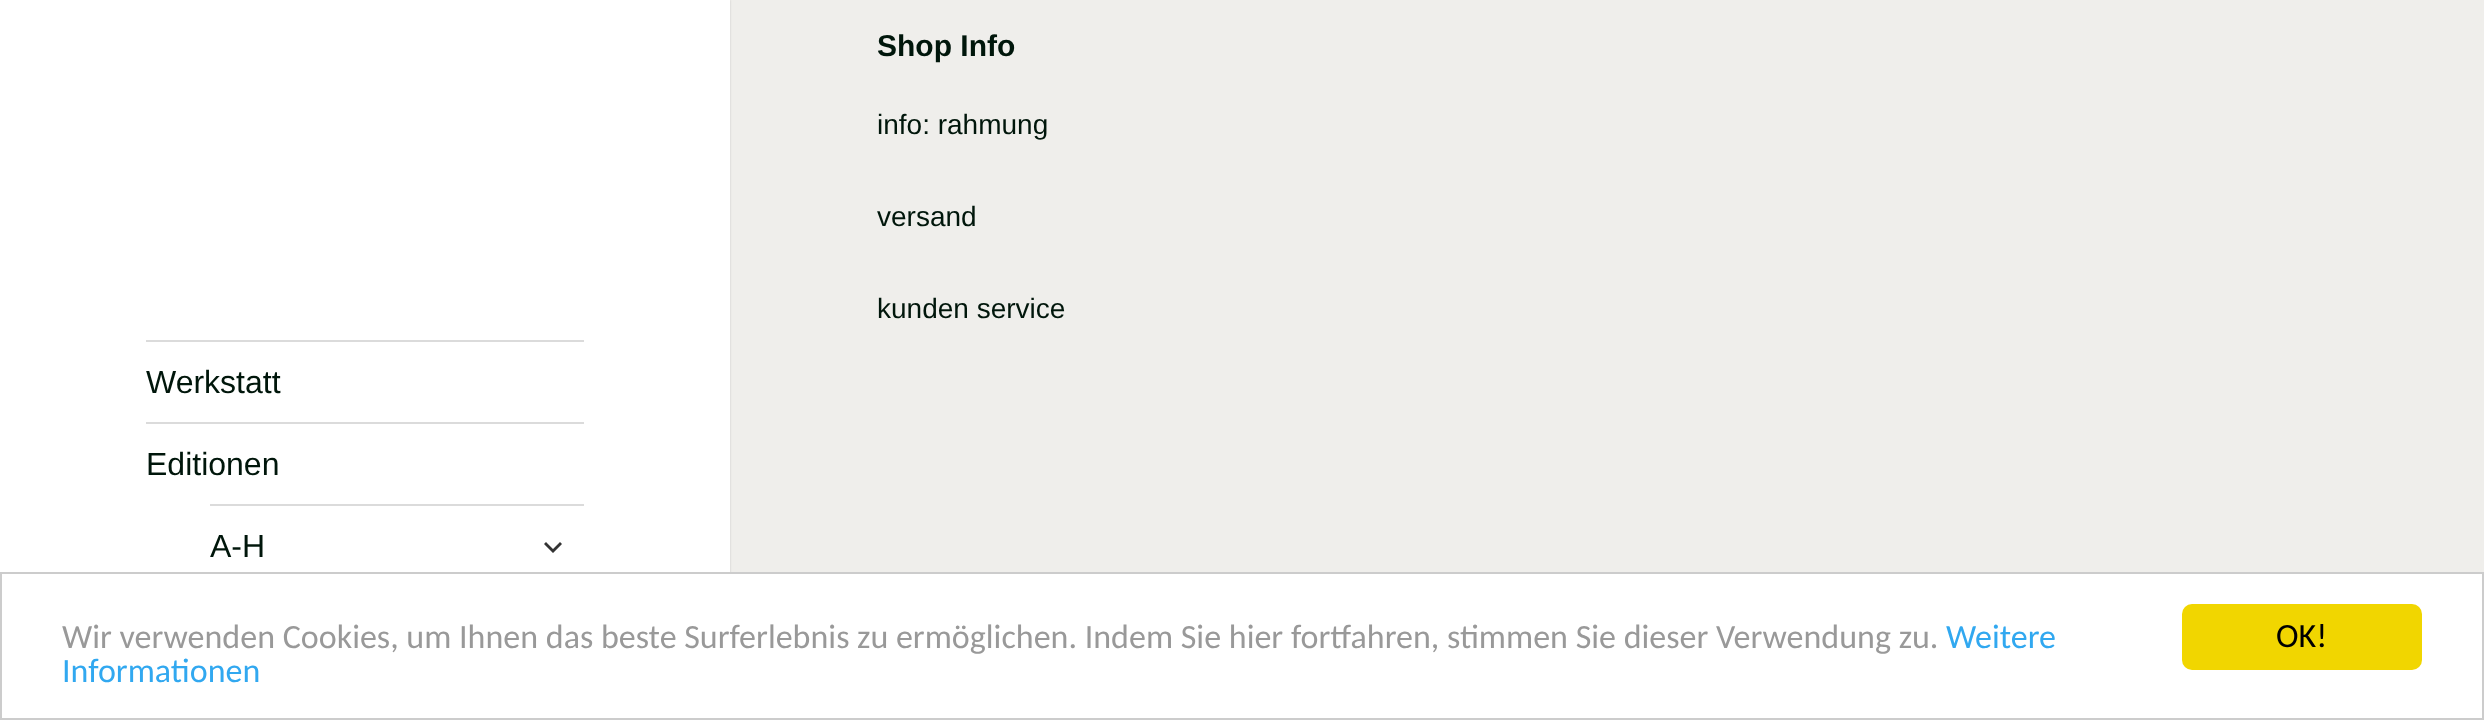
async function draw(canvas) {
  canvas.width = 2484;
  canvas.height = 720;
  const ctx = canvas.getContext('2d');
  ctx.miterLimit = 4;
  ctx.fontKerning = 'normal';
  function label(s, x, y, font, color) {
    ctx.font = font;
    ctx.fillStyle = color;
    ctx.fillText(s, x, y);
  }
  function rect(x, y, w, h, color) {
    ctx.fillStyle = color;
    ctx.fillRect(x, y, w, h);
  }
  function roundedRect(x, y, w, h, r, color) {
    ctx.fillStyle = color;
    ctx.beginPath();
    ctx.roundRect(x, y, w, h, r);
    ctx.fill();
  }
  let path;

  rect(0, 0, 2484, 720, '#efeeeb');
  ctx.fillStyle = '#00000026';
  ctx.filter = 'blur(1px)';
  ctx.beginPath();
  ctx.rect(0, 0, 730, 720);
  ctx.fill();
  ctx.filter = 'none';
  rect(0, 0, 730, 572, '#fff');
  label('Shop Info', 877, 56, 'bold 30px Liberation Sans', '#00160b');
  label('info: rahmung', 877, 134, '28px Liberation Sans', '#00160b');
  label('versand', 877, 226, '28px Liberation Sans', '#00160b');
  label('kunden service', 877, 318, '28px Liberation Sans', '#00160b');
  rect(146, 340, 438, 2, '#dbdbdb');
  label('Werkstatt', 146, 393, '32px Liberation Sans', '#00160b');
  rect(146, 422, 438, 2, '#dbdbdb');
  label('Editionen', 146, 475, '32px Liberation Sans', '#00160b');
  rect(210, 504, 374, 2, '#dbdbdb');
  label('A-H', 210, 557, '32px Liberation Sans', '#00160b');
  ctx.fillStyle = '#333';
  path = new Path2D('M560 542L562 544L553 553L544 544L546 542L553 549Z');
  ctx.fill(path);
  ctx.fillStyle = '#fff';
  ctx.beginPath();
  ctx.rect(1, 573, 2482, 146);
  ctx.fill();
  ctx.strokeStyle = '#ccc';
  ctx.lineWidth = 2;
  ctx.stroke();
  label('Wir verwenden Cookies, um Ihnen das beste Surferlebnis zu ermöglichen. Indem Sie hier fortfahren, stimmen Sie dieser Verwendung zu.', 62, 648, '34px Carlito', '#999');
  label('Weitere', 1946, 648, '34px Carlito', '#31a8f0');
  label('Informationen', 62, 682, '34px Carlito', '#31a8f0');
  roundedRect(2182, 604, 240, 66, 10, '#f1d600');
  label('OK!', 2276, 647, '34px Carlito', '#000');
}

draw(document.querySelector('canvas'));
